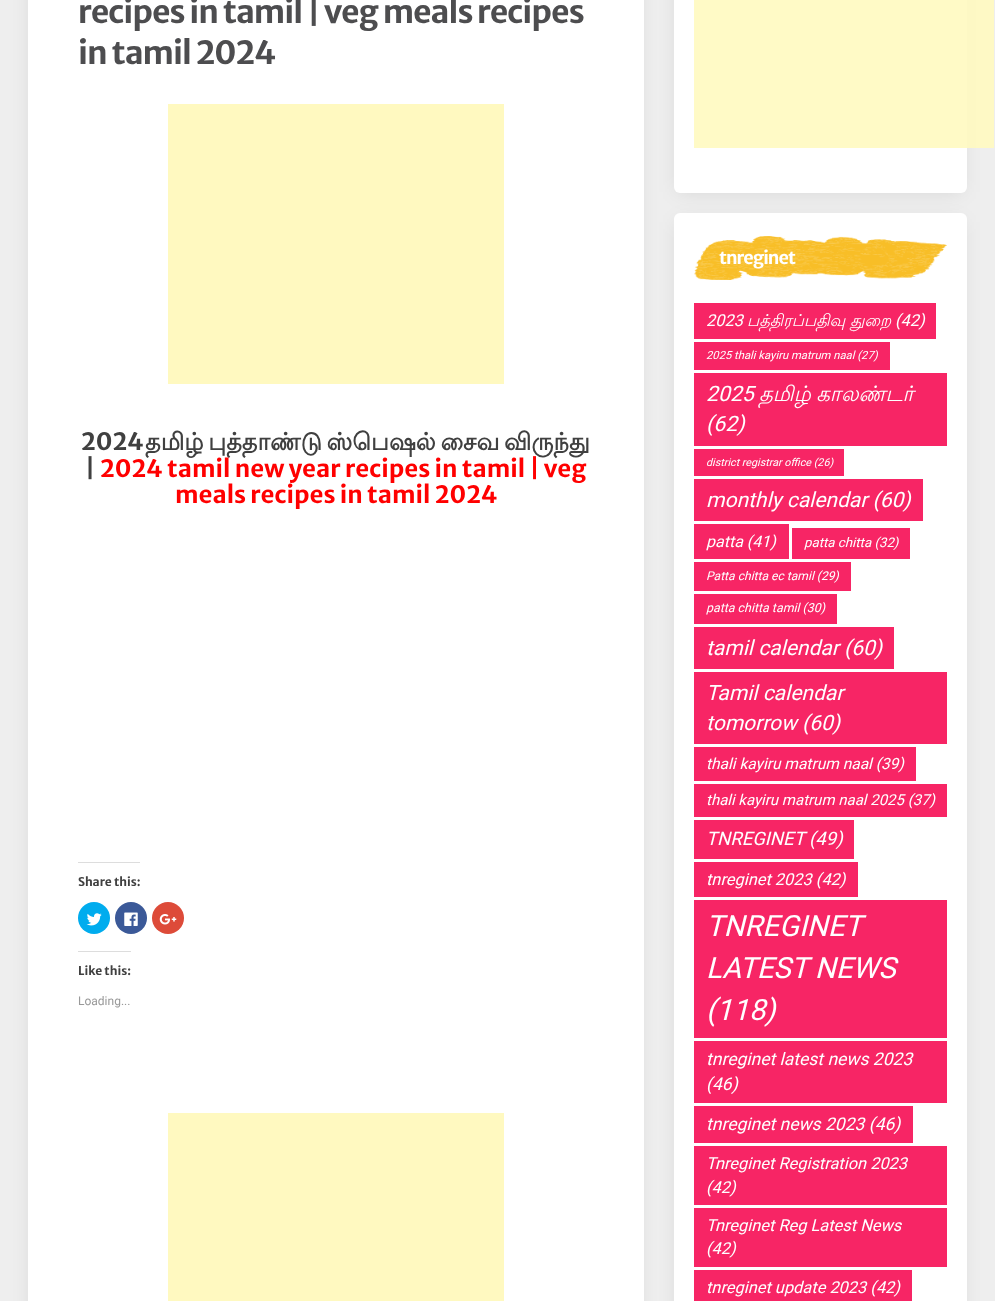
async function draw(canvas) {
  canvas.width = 995;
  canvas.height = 1301;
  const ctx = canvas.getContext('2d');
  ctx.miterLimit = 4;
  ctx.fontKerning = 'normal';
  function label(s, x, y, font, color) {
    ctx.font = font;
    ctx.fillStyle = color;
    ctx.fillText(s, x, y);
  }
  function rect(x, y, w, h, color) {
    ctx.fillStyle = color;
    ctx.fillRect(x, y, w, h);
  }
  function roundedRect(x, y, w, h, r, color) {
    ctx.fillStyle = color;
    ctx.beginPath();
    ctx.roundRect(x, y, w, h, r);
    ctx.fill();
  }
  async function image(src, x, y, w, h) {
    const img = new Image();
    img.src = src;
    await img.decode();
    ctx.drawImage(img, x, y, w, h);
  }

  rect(0, 0, 995, 1301, '#eee');
  ctx.fillStyle = '#0000001a';
  ctx.filter = 'blur(10px)';
  ctx.beginPath();
  ctx.roundRect(32, -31, 606, 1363, 1);
  ctx.fill();
  ctx.filter = 'none';
  rect(28, 0, 616, 1301, '#fff');
  ctx.letterSpacing = '-1px';
  label('recipes in tamil | veg meals recipes', 78, 23, 'bold 32px Merriweather Sans', '#4d4d4f');
  label('in tamil 2024', 78, 64, 'bold 32px Merriweather Sans', '#4d4d4f');
  rect(168, 104, 336, 280, '#fff9c0');
  ctx.letterSpacing = '0px';
  label('2024', 81, 450, 'bold 24px Merriweather Sans', '#404040');
  ctx.wordSpacing = '-2.5px';
  label('தமிழ் புத்தாண்டு ஸ்பெஷல் சைவ விருந்து', 145, 450, 'bold 24px Lohit Tamil', '#404040');
  ctx.wordSpacing = '0px';
  label('|', 85, 477, 'bold 24px Merriweather Sans', '#404040');
  label('2024 tamil new year recipes in tamil | veg', 100, 477, 'bold 24px Merriweather Sans', '#f00');
  label('meals recipes in tamil 2024', 175, 503, 'bold 24px Merriweather Sans', '#f00');
  rect(78, 862, 62, 1, '#ddd');
  label('Share this:', 78, 886, 'bold 12px Merriweather Sans', '#404040');
  ctx.fillStyle = '#00acee';
  ctx.beginPath();
  ctx.arc(94, 918, 16, 0, 2 * Math.PI);
  ctx.fill();
  await image('assets/img1.png', 86, 913, 16, 13);
  ctx.fillStyle = '#3b5998';
  ctx.beginPath();
  ctx.arc(131, 918, 16, 0, 2 * Math.PI);
  ctx.fill();
  await image('assets/img2.png', 124, 912, 14, 14);
  ctx.fillStyle = '#dd4b39';
  ctx.beginPath();
  ctx.arc(168, 918, 16, 0, 2 * Math.PI);
  ctx.fill();
  await image('assets/img3.png', 159, 914, 18, 11);
  rect(78, 951, 53, 1, '#ddd');
  label('Like this:', 78, 975, 'bold 12px Merriweather Sans', '#404040');
  label('Loading...', 78, 1005, '12px Roboto', '#999');
  rect(168, 1113, 336, 188, '#fff9c0');
  ctx.fillStyle = '#0000001a';
  ctx.filter = 'blur(10px)';
  ctx.beginPath();
  ctx.roundRect(678, -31, 283, 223, 1);
  ctx.fill();
  ctx.filter = 'none';
  roundedRect(674, -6, 293, 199, 6, '#fff');
  rect(694, 0, 300, 148, '#fff9c0e6');
  ctx.fillStyle = '#0000001a';
  ctx.filter = 'blur(10px)';
  ctx.beginPath();
  ctx.roundRect(678, 222, 283, 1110, 1);
  ctx.fill();
  ctx.filter = 'none';
  roundedRect(674, 213, 293, 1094, 6, '#fff');
  await image('assets/img4.png', 694, 236, 253, 44);
  ctx.letterSpacing = '-1px';
  label('tnreginet', 719, 264, 'bold 18px Merriweather Sans', '#fff');
  rect(694, 303, 242, 36, '#f72565');
  ctx.letterSpacing = '0px';
  label('2023', 706, 326, 'italic 16.4px Roboto', '#fff');
  label('பத்திரப்பதிவு துறை', 747, 326, 'italic 16.4px Lohit Tamil', '#fff');
  label('(42)', 895, 326, 'italic 16.4px Roboto', '#fff');
  rect(694, 342, 196, 28, '#f72565');
  label('2025 thali kayiru matrum naal (27)', 706, 359, 'italic 11.25px Roboto', '#fff');
  rect(694, 373, 253, 73, '#f72565');
  label('2025', 706, 401, 'italic 21.25px Roboto', '#fff');
  ctx.wordSpacing = '-1px';
  label('தமிழ் காலண்டர்', 759, 401, 'italic 21.25px Lohit Tamil', '#fff');
  ctx.wordSpacing = '0px';
  label('(62)', 706, 431, 'italic 21.25px Roboto', '#fff');
  rect(694, 449, 150, 27, '#f72565');
  label('district registrar office (26)', 706, 466, 'italic 10.75px Roboto', '#fff');
  rect(694, 479, 229, 42, '#f72565');
  label('monthly calendar (60)', 706, 507, 'italic 21px Roboto', '#fff');
  rect(694, 524, 95, 35, '#f72565');
  label('patta (41)', 706, 547, 'italic 16px Roboto', '#fff');
  rect(792, 528, 118, 31, '#f72565');
  label('patta chitta (32)', 804, 547, 'italic 13.25px Roboto', '#fff');
  rect(694, 562, 157, 29, '#f72565');
  label('Patta chitta ec tamil (29)', 706, 580, 'italic 12.1px Roboto', '#fff');
  rect(694, 594, 143, 30, '#f72565');
  label('patta chitta tamil (30)', 706, 612, 'italic 12.4px Roboto', '#fff');
  rect(694, 627, 200, 42, '#f72565');
  label('tamil calendar (60)', 706, 655, 'italic 21px Roboto', '#fff');
  rect(694, 672, 253, 72, '#f72565');
  label('Tamil calendar', 706, 700, 'italic 21px Roboto', '#fff');
  label('tomorrow (60)', 706, 730, 'italic 21px Roboto', '#fff');
  rect(694, 747, 222, 34, '#f72565');
  label('thali kayiru matrum naal (39)', 706, 769, 'italic 15.5px Roboto', '#fff');
  rect(694, 784, 253, 33, '#f72565');
  label('thali kayiru matrum naal 2025 (37)', 706, 805, 'italic 15px Roboto', '#fff');
  rect(694, 820, 160, 39, '#f72565');
  label('TNREGINET', 706, 845, 'italic 18.5px Roboto', '#fff');
  label('(49)', 809, 845, 'italic 18.5px Roboto', '#fff');
  rect(694, 862, 164, 35, '#f72565');
  label('tnreginet 2023 (42)', 706, 885, 'italic 16.4px Roboto', '#fff');
  rect(694, 900, 253, 138, '#f72565');
  label('TNREGINET', 706, 936, 'italic 29.25px Roboto', '#fff');
  label('LATEST NEWS', 706, 978, 'italic 29.25px Roboto', '#fff');
  label('(118)', 706, 1020, 'italic 29.25px Roboto', '#fff');
  rect(694, 1041, 253, 62, '#f72565');
  label('tnreginet latest news 2023', 706, 1065, 'italic 17.5px Roboto', '#fff');
  label('(46)', 706, 1090, 'italic 17.5px Roboto', '#fff');
  rect(694, 1106, 219, 37, '#f72565');
  label('tnreginet news 2023 (46)', 706, 1130, 'italic 17.5px Roboto', '#fff');
  rect(694, 1146, 253, 59, '#f72565');
  label('Tnreginet Registration 2023', 706, 1169, 'italic 16.4px Roboto', '#fff');
  label('(42)', 706, 1193, 'italic 16.4px Roboto', '#fff');
  rect(694, 1208, 253, 59, '#f72565');
  label('Tnreginet Reg Latest News', 706, 1231, 'italic 16.4px Roboto', '#fff');
  label('(42)', 706, 1254, 'italic 16.4px Roboto', '#fff');
  rect(694, 1270, 218, 31, '#f72565');
  label('tnreginet update 2023 (42)', 706, 1293, 'italic 16.4px Roboto', '#fff');
}

draw(document.querySelector('canvas'));
